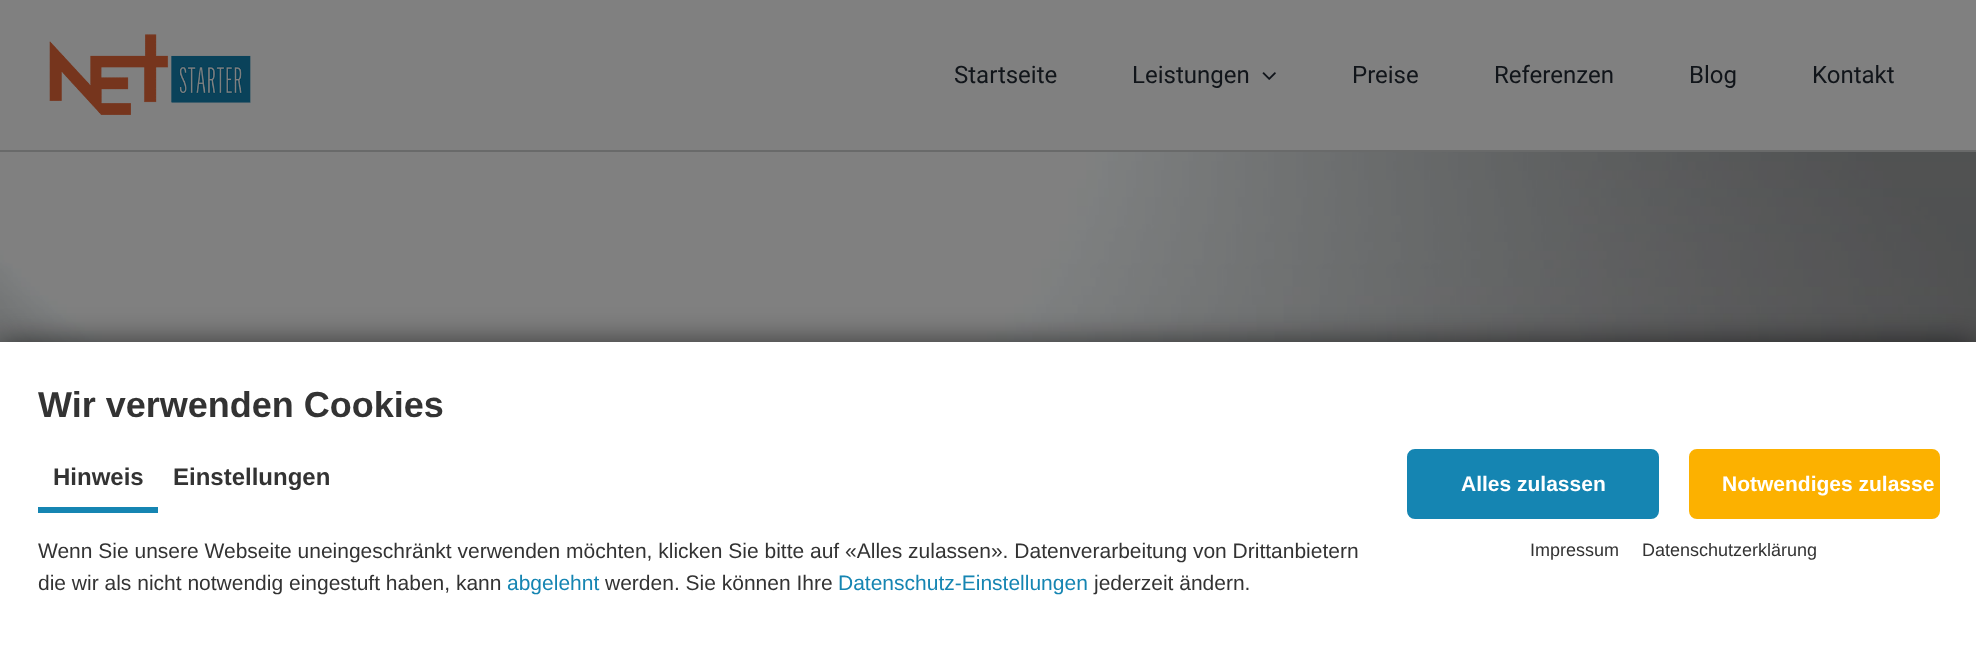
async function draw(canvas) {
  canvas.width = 1976;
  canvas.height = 671;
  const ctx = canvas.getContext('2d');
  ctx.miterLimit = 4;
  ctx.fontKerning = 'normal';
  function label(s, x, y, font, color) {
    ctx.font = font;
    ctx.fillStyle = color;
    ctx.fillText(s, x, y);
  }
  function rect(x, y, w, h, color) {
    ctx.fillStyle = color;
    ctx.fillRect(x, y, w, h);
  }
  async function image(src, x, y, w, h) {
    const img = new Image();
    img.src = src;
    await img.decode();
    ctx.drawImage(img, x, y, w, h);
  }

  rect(0, 0, 1976, 671, '#808080');
  await image('assets/img1.png', 49, 34, 202, 81);
  label('Startseite', 954, 83, '24px Roboto', '#11151a');
  label('Leistungen', 1132, 83, '24px Roboto', '#11151a');
  await image('assets/img2.png', 1262, 72, 14, 8);
  label('Preise', 1352, 83, '24px Roboto', '#11151a');
  label('Referenzen', 1494, 83, '24px Roboto', '#11151a');
  label('Blog', 1689, 83, '24px Roboto', '#11151a');
  label('Kontakt', 1812, 83, '24px Roboto', '#11151a');
  await image('assets/img3.png', 0, 152, 1976, 190);
  rect(0, 150, 1976, 2, '#696a6a');
  ctx.fillStyle = '#00000099';
  ctx.filter = 'blur(15px)';
  ctx.beginPath();
  ctx.rect(0, 342, 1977, 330);
  ctx.fill();
  ctx.filter = 'none';
  rect(0, 342, 1976, 329, '#fff');
  label('Wir verwenden Cookies', 38, 417, 'bold 36px Liberation Sans', '#333');
  rect(38, 507, 120, 6, '#1585b2');
  label('Hinweis', 53, 485, 'bold 24px Liberation Sans', '#333');
  label('Einstellungen', 173, 485, 'bold 24px Liberation Sans', '#333');
  label('Wenn Sie unsere Webseite uneingeschränkt verwenden möchten, klicken Sie bitte auf «Alles zulassen». Datenverarbeitung von Drittanbietern', 38, 558, '21px Liberation Sans', '#333');
  label('die wir als nicht notwendig eingestuft haben, kann', 38, 590, '21px Liberation Sans', '#333');
  label('abgelehnt', 507, 590, '21px Liberation Sans', '#1585b2');
  label('werden. Sie können Ihre', 605, 590, '21px Liberation Sans', '#333');
  label('Datenschutz-Einstellungen', 838, 590, '21px Liberation Sans', '#1585b2');
  label('jederzeit ändern.', 1094, 590, '21px Liberation Sans', '#333');
  ctx.fillStyle = '#1585b2';
  ctx.beginPath();
  ctx.roundRect(1408.5, 450.5, 249, 67, 6.5);
  ctx.fill();
  ctx.strokeStyle = '#1585b2';
  ctx.lineWidth = 3;
  ctx.stroke();
  label('Alles zulassen', 1461, 491, 'bold 21px Liberation Sans', '#fff');
  ctx.fillStyle = '#fcb100';
  ctx.beginPath();
  ctx.roundRect(1690.5, 450.5, 248, 67, 6.5);
  ctx.fill();
  ctx.strokeStyle = '#fcb100';
  ctx.stroke();
  label('Notwendiges zulasse', 1722, 491, 'bold 21px Liberation Sans', '#fff');
  label('Impressum', 1530, 556, '18px Liberation Sans', '#333');
  label('Datenschutzerklärung', 1642, 556, '18px Liberation Sans', '#333');
}

draw(document.querySelector('canvas'));
